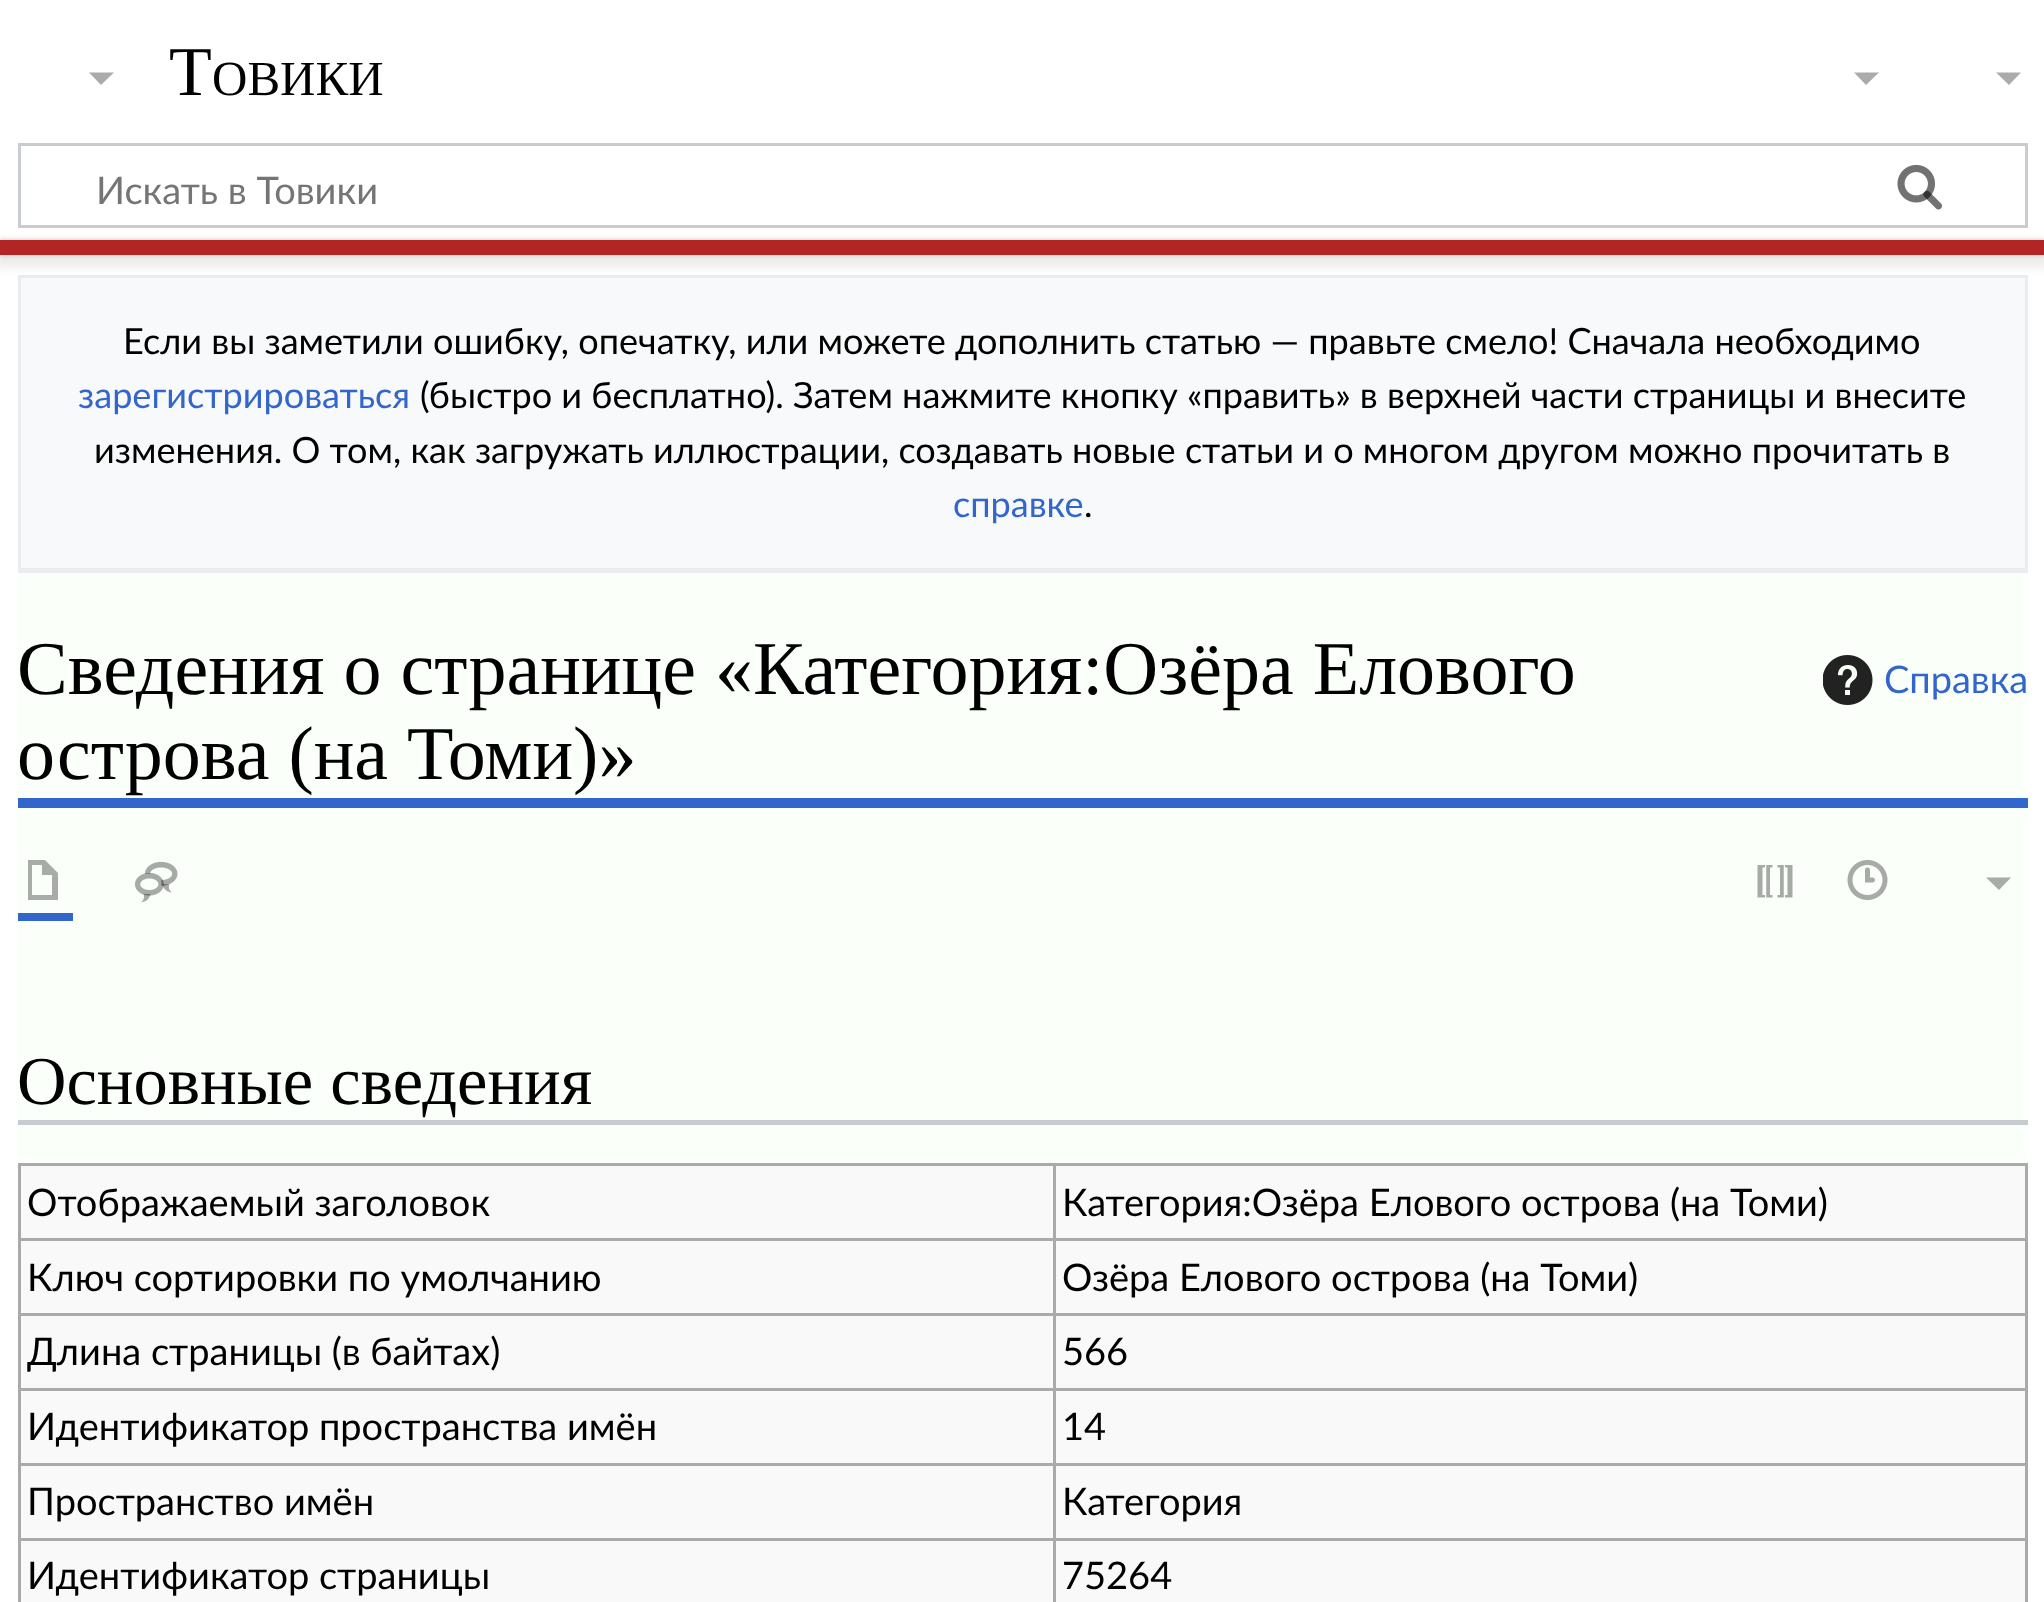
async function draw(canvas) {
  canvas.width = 2044;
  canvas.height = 1602;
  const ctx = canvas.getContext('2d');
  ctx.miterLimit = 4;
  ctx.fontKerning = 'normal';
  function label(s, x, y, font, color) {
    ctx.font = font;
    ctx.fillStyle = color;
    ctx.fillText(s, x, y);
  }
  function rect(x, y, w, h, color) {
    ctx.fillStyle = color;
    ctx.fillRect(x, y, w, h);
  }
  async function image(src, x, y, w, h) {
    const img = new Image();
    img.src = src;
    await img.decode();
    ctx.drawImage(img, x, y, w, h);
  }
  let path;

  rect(0, 0, 2044, 1602, '#fff');
  label('Т', 169, 95, '70px Liberation Serif', '#000');
  label('ОВИКИ', 212, 95, '49px Liberation Serif', '#000');
  ctx.fillStyle = '#ababab';
  path = new Path2D('M2021 72.5L2009 85L1996 72.5Z');
  ctx.fill(path);
  ctx.strokeStyle = '#c8ccd1';
  ctx.lineWidth = 3;
  ctx.strokeRect(19.5, 144.5, 2007, 82);
  await image('assets/img1.png', 1897, 165, 45, 45);
  label('Искать в Товики', 96, 204, '38px Lato', '#757575');
  await image('assets/img2.png', 1897, 165, 45, 45);
  ctx.fillStyle = '#00000033';
  ctx.filter = 'blur(2.5px)';
  ctx.beginPath();
  ctx.rect(0, 240, 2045, 15);
  ctx.fill();
  ctx.filter = 'none';
  rect(21, 278, 2004, 290, '#f8f9fa');
  rect(18, 275, 2010, 3, '#eaecf0');
  rect(2025, 275, 3, 298, '#eaecf0');
  rect(18, 568, 2010, 5, '#eaecf0');
  rect(18, 275, 3, 298, '#eaecf0');
  ctx.fillStyle = '#00000012';
  ctx.filter = 'blur(4px)';
  ctx.beginPath();
  ctx.rect(-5, 243, 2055, 25);
  ctx.fill();
  ctx.filter = 'none';
  rect(0, 240, 2044, 15, '#b32424');
  ctx.fillStyle = '#ababab';
  path = new Path2D('M114 72.5L101 85L89 72.5Z');
  ctx.fill(path);
  path = new Path2D('M1879 72.5L1866 85L1854 72.5Z');
  ctx.fill(path);
  rect(18, 573, 2010, 590, '#fafffa');
  label('Если вы заметили ошибку, опечатку, или можете дополнить статью — правьте смело! Сначала необходимо', 123, 354, '36.1px Lato', '#000');
  label('зарегистрироваться', 78, 408, '36.1px Lato', '#36c');
  label('(быстро и бесплатно). Затем нажмите кнопку «править» в верхней части страницы и внесите', 420, 408, '36.1px Lato', '#000');
  label('изменения. О том, как загружать иллюстрации, создавать новые статьи и о многом другом можно прочитать в', 94, 463, '36.1px Lato', '#000');
  label('справке', 953, 517, '36.1px Lato', '#36c');
  label('.', 1084, 517, '36.1px Lato', '#000');
  rect(18, 798, 2010, 10, '#36c');
  label('Сведения о странице «Категория:Озёра Елового', 17, 694, '76px Liberation Serif', '#000');
  label('острова (на Томи)»', 17, 779, '76px Liberation Serif', '#000');
  await image('assets/img3.png', 1823, 655, 50, 50);
  label('Справка', 1884, 693, '38px Lato', '#36c');
  rect(18, 913, 55, 8, '#36c');
  ctx.fillStyle = '#a8aba8';
  path = new Path2D('M28 860V900H58V873L45 860ZM32 865H42V875H52V895H32Z');
  ctx.fill(path);
  await image('assets/img4.png', 135, 861, 43, 42);
  await image('assets/img5.png', 1757, 865, 36, 33);
  await image('assets/img6.png', 1847, 860, 41, 40);
  path = new Path2D('M2011 877.5L1999 890L1986 877.5Z');
  ctx.fill(path);
  rect(18, 1120, 2010, 5, '#c8ccd1');
  label('Основные сведения', 17, 1104, '68.5px Liberation Serif', '#000');
  rect(21, 1166, 2004, 436, '#f9f9f9');
  rect(18, 1163, 2010, 3, '#aaa');
  rect(2025, 1163, 3, 439, '#aaa');
  rect(18, 1163, 3, 439, '#aaa');
  label('Отображаемый заголовок', 27, 1216, '38px Lato', '#000');
  rect(1053, 1238, 975, 3, '#aaa');
  rect(1053, 1313, 975, 3, '#aaa');
  rect(1053, 1388, 975, 3, '#aaa');
  rect(1053, 1463, 975, 3, '#aaa');
  rect(1053, 1538, 975, 3, '#aaa');
  rect(1053, 1538, 3, 64, '#aaa');
  rect(18, 1538, 1037, 3, '#aaa');
  rect(1053, 1463, 3, 77, '#aaa');
  rect(18, 1463, 1037, 3, '#aaa');
  rect(1053, 1388, 3, 77, '#aaa');
  rect(18, 1388, 1037, 3, '#aaa');
  rect(1053, 1313, 3, 77, '#aaa');
  rect(18, 1313, 1037, 3, '#aaa');
  rect(1053, 1238, 3, 77, '#aaa');
  rect(18, 1238, 1037, 3, '#aaa');
  rect(1053, 1163, 3, 77, '#aaa');
  label('Категория:Озёра Елового острова (на Томи)', 1062, 1216, '38px Lato', '#000');
  label('Ключ сортировки по умолчанию', 27, 1291, '38px Lato', '#000');
  label('Озёра Елового острова (на Томи)', 1062, 1291, '38px Lato', '#000');
  label('Длина страницы (в байтах)', 27, 1365, '38px Lato', '#000');
  label('566', 1062, 1365, '38px Lato', '#000');
  label('Идентификатор пространства имён', 27, 1440, '38px Lato', '#000');
  label('14', 1062, 1440, '38px Lato', '#000');
  label('Пространство имён', 27, 1515, '38px Lato', '#000');
  label('Категория', 1062, 1515, '38px Lato', '#000');
  label('Идентификатор страницы', 27, 1589, '38px Lato', '#000');
  label('75264', 1062, 1589, '38px Lato', '#000');
}

draw(document.querySelector('canvas'));
